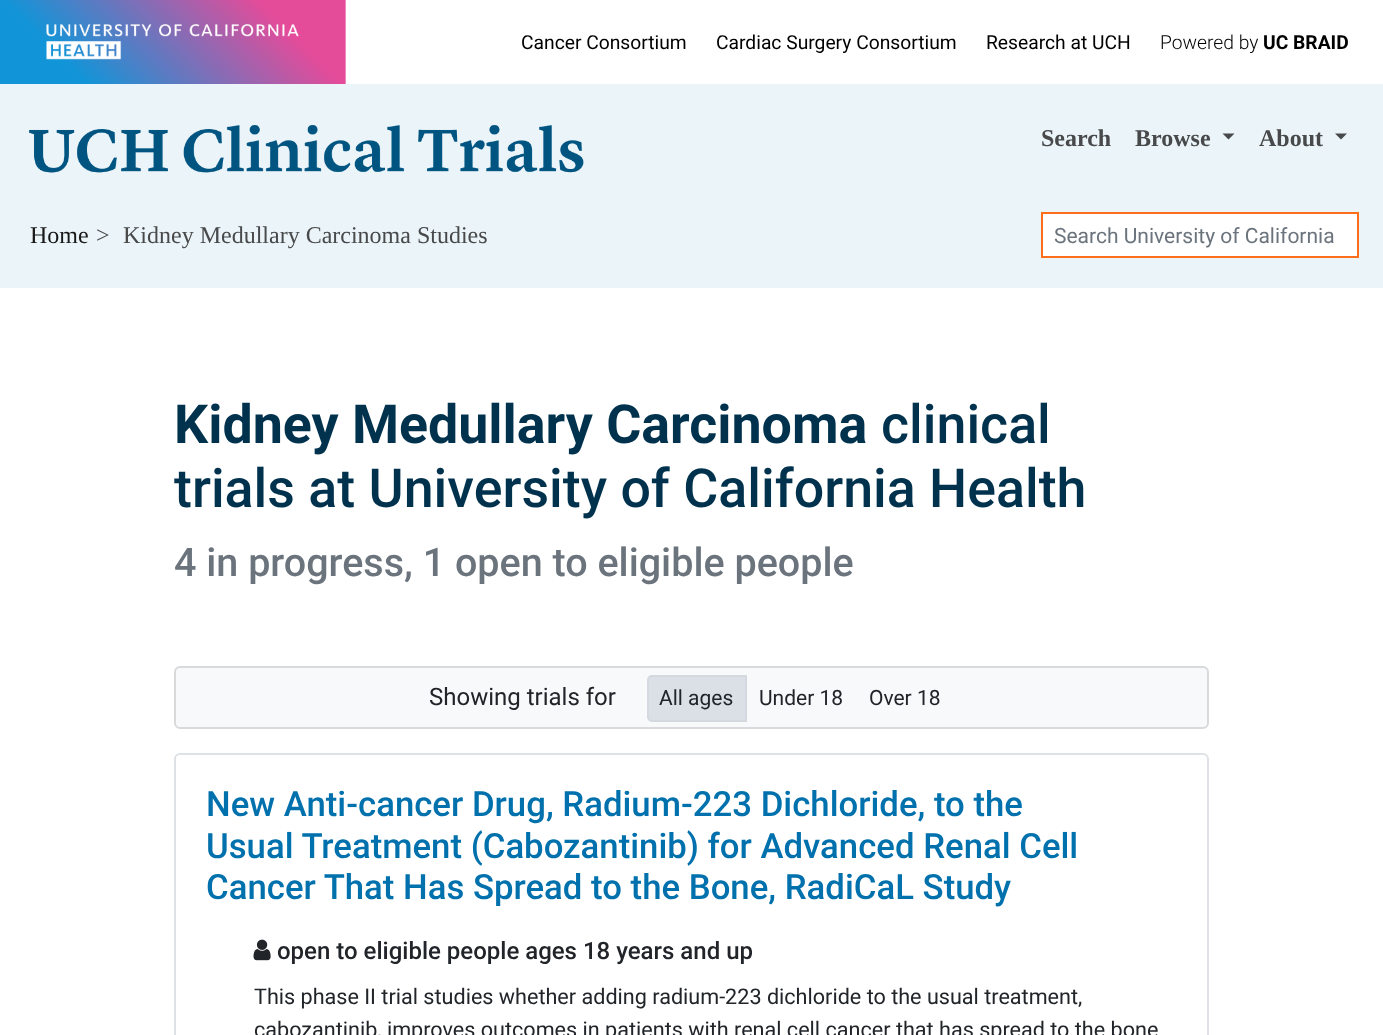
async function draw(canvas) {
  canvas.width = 1383;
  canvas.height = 1035;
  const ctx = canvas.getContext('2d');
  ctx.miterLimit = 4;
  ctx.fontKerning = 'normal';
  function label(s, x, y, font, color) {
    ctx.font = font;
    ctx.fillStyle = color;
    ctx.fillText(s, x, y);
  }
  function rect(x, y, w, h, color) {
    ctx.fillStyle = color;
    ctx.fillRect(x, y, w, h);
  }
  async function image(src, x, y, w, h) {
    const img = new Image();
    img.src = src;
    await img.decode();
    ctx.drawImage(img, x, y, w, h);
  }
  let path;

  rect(0, 0, 1383, 1035, '#fff');
  await image('assets/img1.png', 0, 0, 346, 84);
  await image('assets/img2.png', 46, 24, 253, 36);
  label('Cancer Consortium', 521, 49, '19.25px Roboto', '#000');
  label('Cardiac Surgery Consortium', 716, 49, '19.25px Roboto', '#000');
  label('Research at UCH', 986, 49, '19.25px Roboto', '#000');
  label('Powered by', 1160, 49, '300 19.25px Roboto', '#000');
  label('UC BRAID', 1263, 49, 'bold 19.25px Roboto', '#000');
  rect(0, 84, 1383, 204, '#ebf4f8');
  await image('assets/img3.png', 29, 125, 555, 48);
  label('Search', 1041, 146, 'bold 24px Liberation Serif', '#47494a');
  label('Browse', 1135, 146, 'bold 24px Liberation Serif', '#47494a');
  path = new Path2D('M1222.5 133.5H1234.5L1228.5 139.5Z');
  ctx.fill(path);
  label('About', 1259, 146, 'bold 24px Liberation Serif', '#47494a');
  path = new Path2D('M1335 133.5H1347L1341 139.5Z');
  ctx.fill(path);
  label('Home', 30, 243, '24px Liberation Serif', '#181819');
  label('>', 96, 243, '24px Liberation Serif', '#47494a');
  label('Kidney Medullary Carcinoma Studies', 123, 243, '24px Liberation Serif', '#47494a');
  ctx.fillStyle = '#fff';
  ctx.beginPath();
  ctx.rect(1042, 213, 316, 44);
  ctx.fill();
  ctx.strokeStyle = '#ff6e1b';
  ctx.lineWidth = 2;
  ctx.stroke();
  label('Search University of California', 1054, 243, '21px Roboto', '#6b747c');
  label('Kidney Medullary Carcinoma', 174, 443, 'bold 53.75px Roboto', '#00324e');
  label('clinical', 881, 443, '500 53.75px Roboto', '#00324e');
  label('trials at University of California Health', 174, 507, '500 53.75px Roboto', '#00324e');
  label('4 in progress, 1 open to eligible people', 174, 576, '500 39.5px Roboto', '#6b747c');
  ctx.fillStyle = '#f8f9fa';
  ctx.beginPath();
  ctx.roundRect(175, 667, 1033, 61, 5);
  ctx.fill();
  ctx.strokeStyle = '#d9dadb';
  ctx.stroke();
  label('Showing trials for', 429, 705, '24px Roboto', '#212529');
  ctx.fillStyle = '#dae0e5';
  ctx.beginPath();
  ctx.roundRect(648, 676, 98, 45, [4, 0, 0, 4]);
  ctx.fill();
  ctx.strokeStyle = '#d3d9df';
  ctx.stroke();
  label('All ages', 659, 705, '21px Roboto', '#212529');
  label('Under 18', 759, 705, '21px Roboto', '#212529');
  label('Over 18', 869, 705, '21px Roboto', '#212529');
  ctx.beginPath();
  ctx.roundRect(175, 754, 1033, 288, 5);
  ctx.strokeStyle = '#dee2e6';
  ctx.stroke();
  label('New Anti-cancer Drug, Radium-223 Dichloride, to the', 206, 816, '500 34.75px Roboto', '#0071ad');
  label('Usual Treatment (Cabozantinib) for Advanced Renal Cell', 206, 858, '500 34.75px Roboto', '#0071ad');
  label('Cancer That Has Spread to the Bone, RadiCaL Study', 206, 899, '500 34.75px Roboto', '#0071ad');
  await image('assets/img4.png', 253, 939, 18, 22);
  label('open to eligible people ages 18 years and up', 277, 959, '500 24px Roboto', '#212529');
  label('This phase II trial studies whether adding radium-223 dichloride to the usual treatment,', 254, 1004, '21.6px Roboto', '#212529');
  label('cabozantinib, improves outcomes in patients with renal cell cancer that has spread to the bone', 254, 1037, '21.6px Roboto', '#212529');
}

draw(document.querySelector('canvas'));
